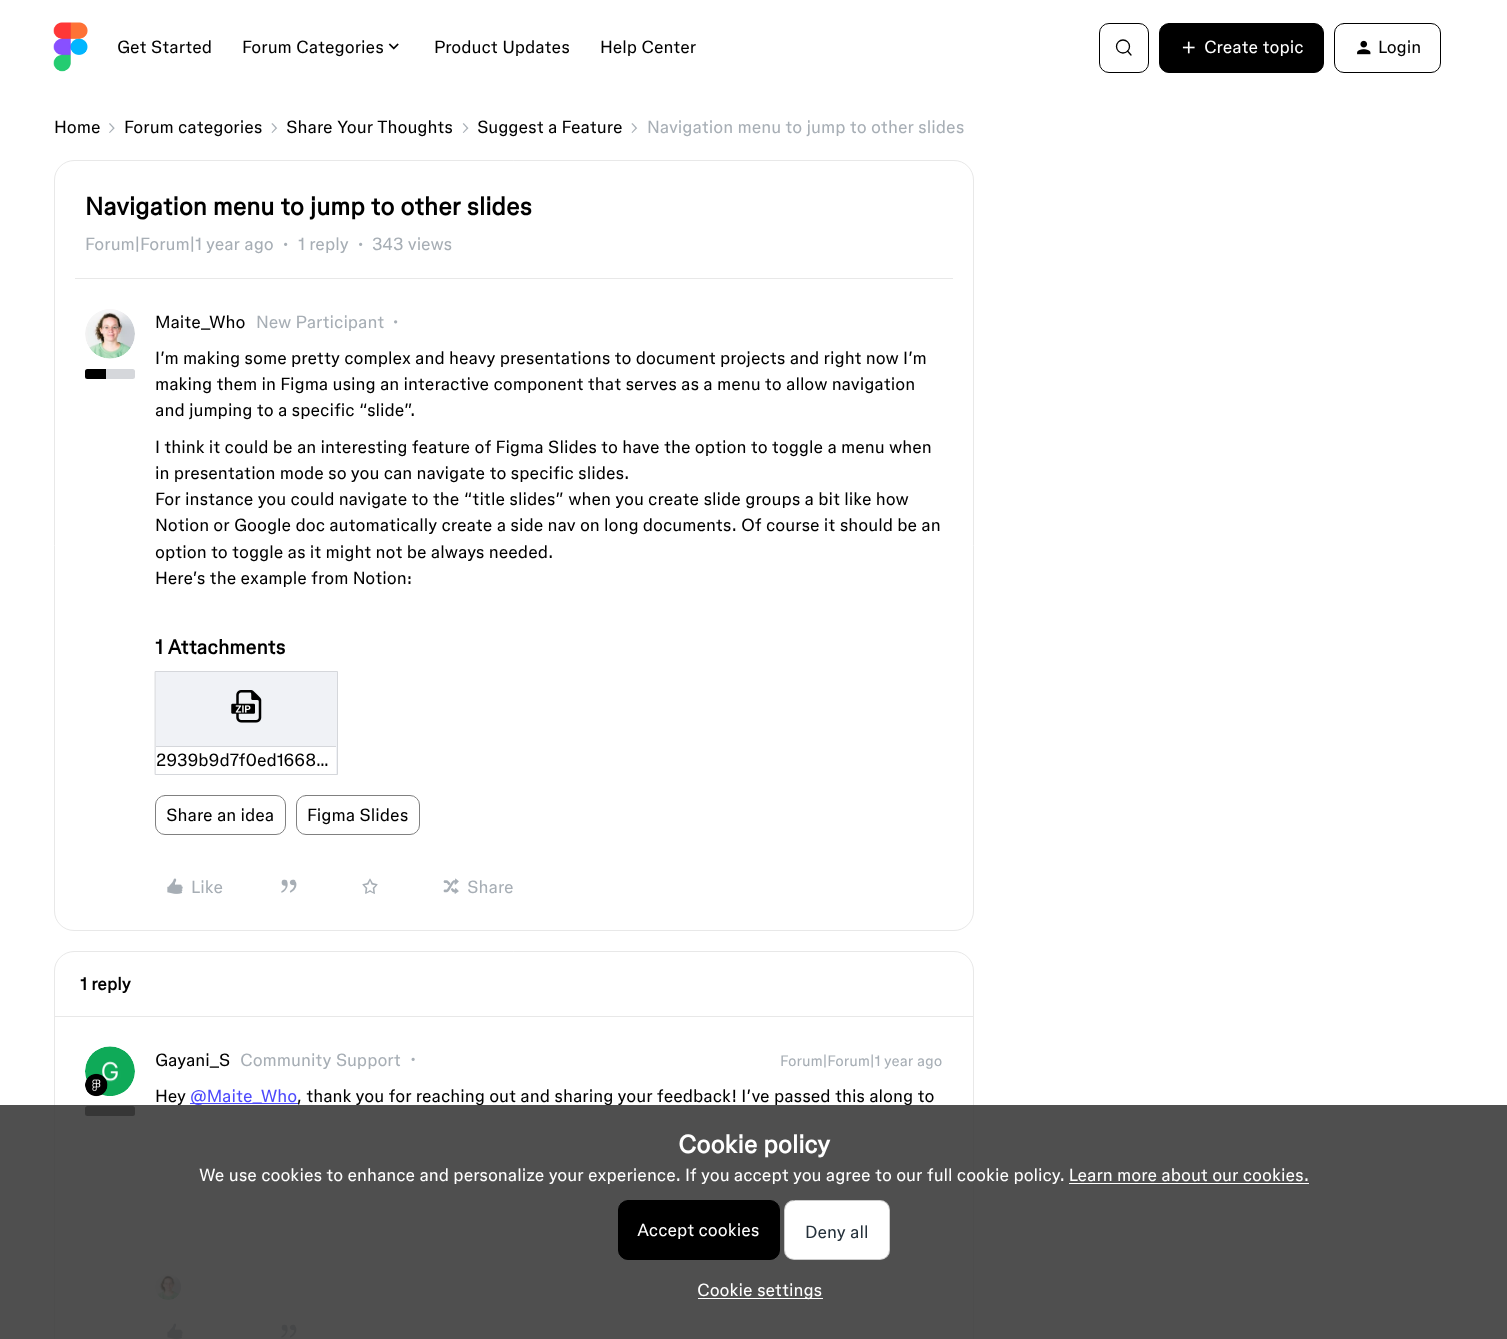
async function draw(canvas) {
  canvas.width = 1507;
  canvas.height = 1339;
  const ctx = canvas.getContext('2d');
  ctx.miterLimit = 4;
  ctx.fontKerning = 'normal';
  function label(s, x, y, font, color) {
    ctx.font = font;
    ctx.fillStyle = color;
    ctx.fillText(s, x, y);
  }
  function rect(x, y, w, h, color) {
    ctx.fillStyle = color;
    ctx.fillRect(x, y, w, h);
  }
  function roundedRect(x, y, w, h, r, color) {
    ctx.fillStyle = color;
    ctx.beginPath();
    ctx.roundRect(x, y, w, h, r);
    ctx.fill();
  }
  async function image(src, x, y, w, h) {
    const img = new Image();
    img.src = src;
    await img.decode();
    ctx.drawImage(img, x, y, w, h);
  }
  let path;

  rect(0, 0, 1507, 1339, '#fff');
  await image('assets/img1.png', 53, 22, 35, 50);
  label('Get Started', 117, 53, '17.5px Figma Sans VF', '#000');
  label('Forum Categories', 242, 53, '17.5px Figma Sans VF', '#000');
  await image('assets/img2.png', 388, 43, 11, 7);
  label('Product Updates', 434, 53, '17.5px Figma Sans VF', '#000');
  label('Help Center', 600, 53, '17.5px Figma Sans VF', '#000');
  ctx.beginPath();
  ctx.roundRect(1099.5, 23.5, 49, 49, 9.5);
  ctx.strokeStyle = '#000';
  ctx.stroke();
  ctx.beginPath();
  ctx.arc(1123, 46.5, 6.5, 0, 2 * Math.PI);
  ctx.lineWidth = 1.3;
  ctx.stroke();
  path = new Path2D('M1127.5 51L1131 55');
  ctx.lineCap = 'round';
  ctx.stroke(path);
  ctx.beginPath();
  ctx.roundRect(1159.5, 23.5, 164, 49, 9.5);
  ctx.fill();
  ctx.lineWidth = 1;
  ctx.stroke();
  await image('assets/img3.png', 1182, 41, 13, 13);
  label('Create topic', 1204, 53, '17.5px Figma Sans VF', '#fff');
  ctx.beginPath();
  ctx.roundRect(1334.5, 23.5, 106, 49, 9.5);
  ctx.stroke();
  await image('assets/img4.png', 1357, 40, 14, 15);
  label('Login', 1378, 53, '17.5px Figma Sans VF', '#000');
  label('Home', 54, 133, '17.5px Figma Sans VF', '#000');
  await image('assets/img5.png', 109, 123, 6, 10);
  label('Forum categories', 124, 133, '17.5px Figma Sans VF', '#000');
  await image('assets/img6.png', 271, 123, 7, 10);
  label('Share Your Thoughts', 286, 133, '17.5px Figma Sans VF', '#000');
  await image('assets/img7.png', 462, 123, 7, 10);
  label('Suggest a Feature', 477, 133, '17.5px Figma Sans VF', '#000');
  await image('assets/img6.png', 631, 123, 7, 10);
  label('Navigation menu to jump to other slides', 647, 133, '17.5px Figma Sans VF', '#a7aeb5');
  ctx.beginPath();
  ctx.roundRect(54.5, 160.5, 919, 770, 19.5);
  ctx.strokeStyle = '#e8e8e8';
  ctx.stroke();
  label('Navigation menu to jump to other slides', 85, 215, 'bold 25px Figma Sans VF', '#000');
  label('Forum|Forum|1 year ago', 85, 250, '17.5px Figma Sans VF', '#a7aeb5');
  await image('assets/img8.png', 284, 242, 4, 4);
  label('1 reply', 298, 250, '17.5px Figma Sans VF', '#a7aeb5');
  await image('assets/img8.png', 359, 242, 4, 4);
  label('343 views', 372, 250, '17.5px Figma Sans VF', '#a7aeb5');
  rect(75, 278, 878, 1, '#e8e8e8');
  await image('assets/img9.png', 85, 309, 50, 50);
  roundedRect(85, 369, 50, 10, 2.5, '#d5d7db');
  ctx.fillStyle = '#000';
  ctx.beginPath();
  ctx.roundRect(85, 369, 21, 10, [2.5, 0, 0, 2.5]);
  ctx.fill();
  label('Maite_Who', 155, 328, '17.5px Figma Sans VF', '#000');
  label('New Participant', 256, 328, '17.5px Figma Sans VF', '#a7aeb5');
  await image('assets/img10.png', 394, 320, 4, 4);
  label('I’m making some pretty complex and heavy presentations to document projects and right now I’m', 155, 364, '17.5px Figma Sans VF', '#000');
  label('making them in Figma using an interactive component that serves as a menu to allow navigation', 155, 390, '17.5px Figma Sans VF', '#000');
  label('and jumping to a specific “slide”.', 155, 416, '17.5px Figma Sans VF', '#000');
  label('I think it could be an interesting feature of Figma Slides to have the option to toggle a menu when', 155, 453, '17.5px Figma Sans VF', '#000');
  label('in presentation mode so you can navigate to specific slides.', 155, 479, '17.5px Figma Sans VF', '#000');
  label('For instance you could navigate to the “title slides” when you create slide groups a bit like how', 155, 505, '17.5px Figma Sans VF', '#000');
  label('Notion or Google doc automatically create a side nav on long documents. Of course it should be an', 155, 531, '17.5px Figma Sans VF', '#000');
  label('option to toggle as it might not be always needed.', 155, 558, '17.5px Figma Sans VF', '#000');
  label('Here’s the example from Notion:', 155, 584, '17.5px Figma Sans VF', '#000');
  label('1 Attachments', 155, 654, 'bold 20px "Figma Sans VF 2"', '#000');
  ctx.fillStyle = '#f0f2f6';
  ctx.beginPath();
  ctx.rect(155.5, 671.5, 182, 103);
  ctx.fill();
  ctx.strokeStyle = '#d5d7db';
  ctx.stroke();
  await image('assets/img11.png', 231, 690, 31, 33);
  rect(156, 747, 180, 27, '#fff');
  rect(156, 746, 180, 1, '#d5d7db');
  label('2939b9d7f0ed1668…', 156, 766, '17.5px Figma Sans VF', '#000');
  ctx.beginPath();
  ctx.roundRect(155.5, 795.5, 130, 39, 9.5);
  ctx.strokeStyle = '#808080';
  ctx.stroke();
  label('Share an idea', 166, 821, '17.5px Figma Sans VF', '#000');
  ctx.beginPath();
  ctx.roundRect(296.5, 795.5, 123, 39, 9.5);
  ctx.stroke();
  label('Figma Slides', 307, 821, '17.5px Figma Sans VF', '#000');
  await image('assets/img12.png', 167, 878, 16, 16);
  label('Like', 191, 893, '17.5px Figma Sans VF', '#a7aeb5');
  await image('assets/img13.png', 281, 879, 16, 14);
  await image('assets/img14.png', 362, 878, 16, 16);
  await image('assets/img15.png', 443, 878, 16, 16);
  label('Share', 467, 893, '17.5px Figma Sans VF', '#a7aeb5');
  ctx.beginPath();
  ctx.roundRect(54.5, 951.5, 919, 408, 19.5);
  ctx.strokeStyle = '#e8e8e8';
  ctx.stroke();
  rect(55, 1016, 918, 1, '#e8e8e8');
  label('1 reply', 80, 990, 'bold 17.5px "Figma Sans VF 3"', '#000');
  await image('assets/img16.png', 85, 1046, 50, 50);
  await image('assets/img17.png', 85, 1073, 23, 24);
  roundedRect(85, 1106, 50, 10, 2.5, '#000');
  label('Gayani_S', 155, 1066, '17.5px Figma Sans VF', '#000');
  label('Community Support', 240, 1066, '17.5px Figma Sans VF', '#a7aeb5');
  await image('assets/img18.png', 411, 1057, 4, 4);
  label('Forum|Forum|1 year ago', 780, 1066, '15px "Figma Sans VF 2"', '#a7aeb5');
  label('Hey', 155, 1102, '17.5px Figma Sans VF', '#000');
  rect(190, 1103, 108, 1, '#4d49fc');
  label('@Maite_Who', 190, 1102, '17.5px Figma Sans VF', '#4d49fc');
  label(', thank you for reaching out and sharing your feedback! I’ve passed this along to', 297, 1102, '17.5px Figma Sans VF', '#000');
  await image('assets/img19.png', 155, 1274, 26, 26);
  await image('assets/img12.png', 167, 1323, 16, 16);
  await image('assets/img13.png', 281, 1324, 16, 14);
  rect(0, 1105, 1507, 234, '#3c3c3ce6');
  label('Cookie policy', 678, 1153, 'bold 25px Figma Sans VF', '#fff');
  label('We use cookies to enhance and personalize your experience. If you accept you agree to our full cookie policy. Learn more about our cookies.', 199, 1181, '17.5px Figma Sans VF', '#fff');
  rect(1069, 1183, 240, 1, '#fff');
  ctx.fillStyle = '#000';
  ctx.beginPath();
  ctx.roundRect(618.5, 1200.5, 161, 59, 9.5);
  ctx.fill();
  ctx.strokeStyle = '#000';
  ctx.stroke();
  label('Accept cookies', 637, 1236, '17.5px Figma Sans VF', '#fff');
  roundedRect(784, 1200, 106, 60, 10, '#fff');
  ctx.beginPath();
  ctx.roundRect(784.5, 1200.5, 105, 59, 9.5);
  ctx.strokeStyle = '#00000033';
  ctx.stroke();
  label('Deny all', 805, 1238, '17.5px Figma Sans VF', '#25313b');
  rect(698, 1298, 125, 1, '#fff');
  label('Cookie settings', 697, 1296, '17.5px Figma Sans VF', '#fff');
}

draw(document.querySelector('canvas'));
